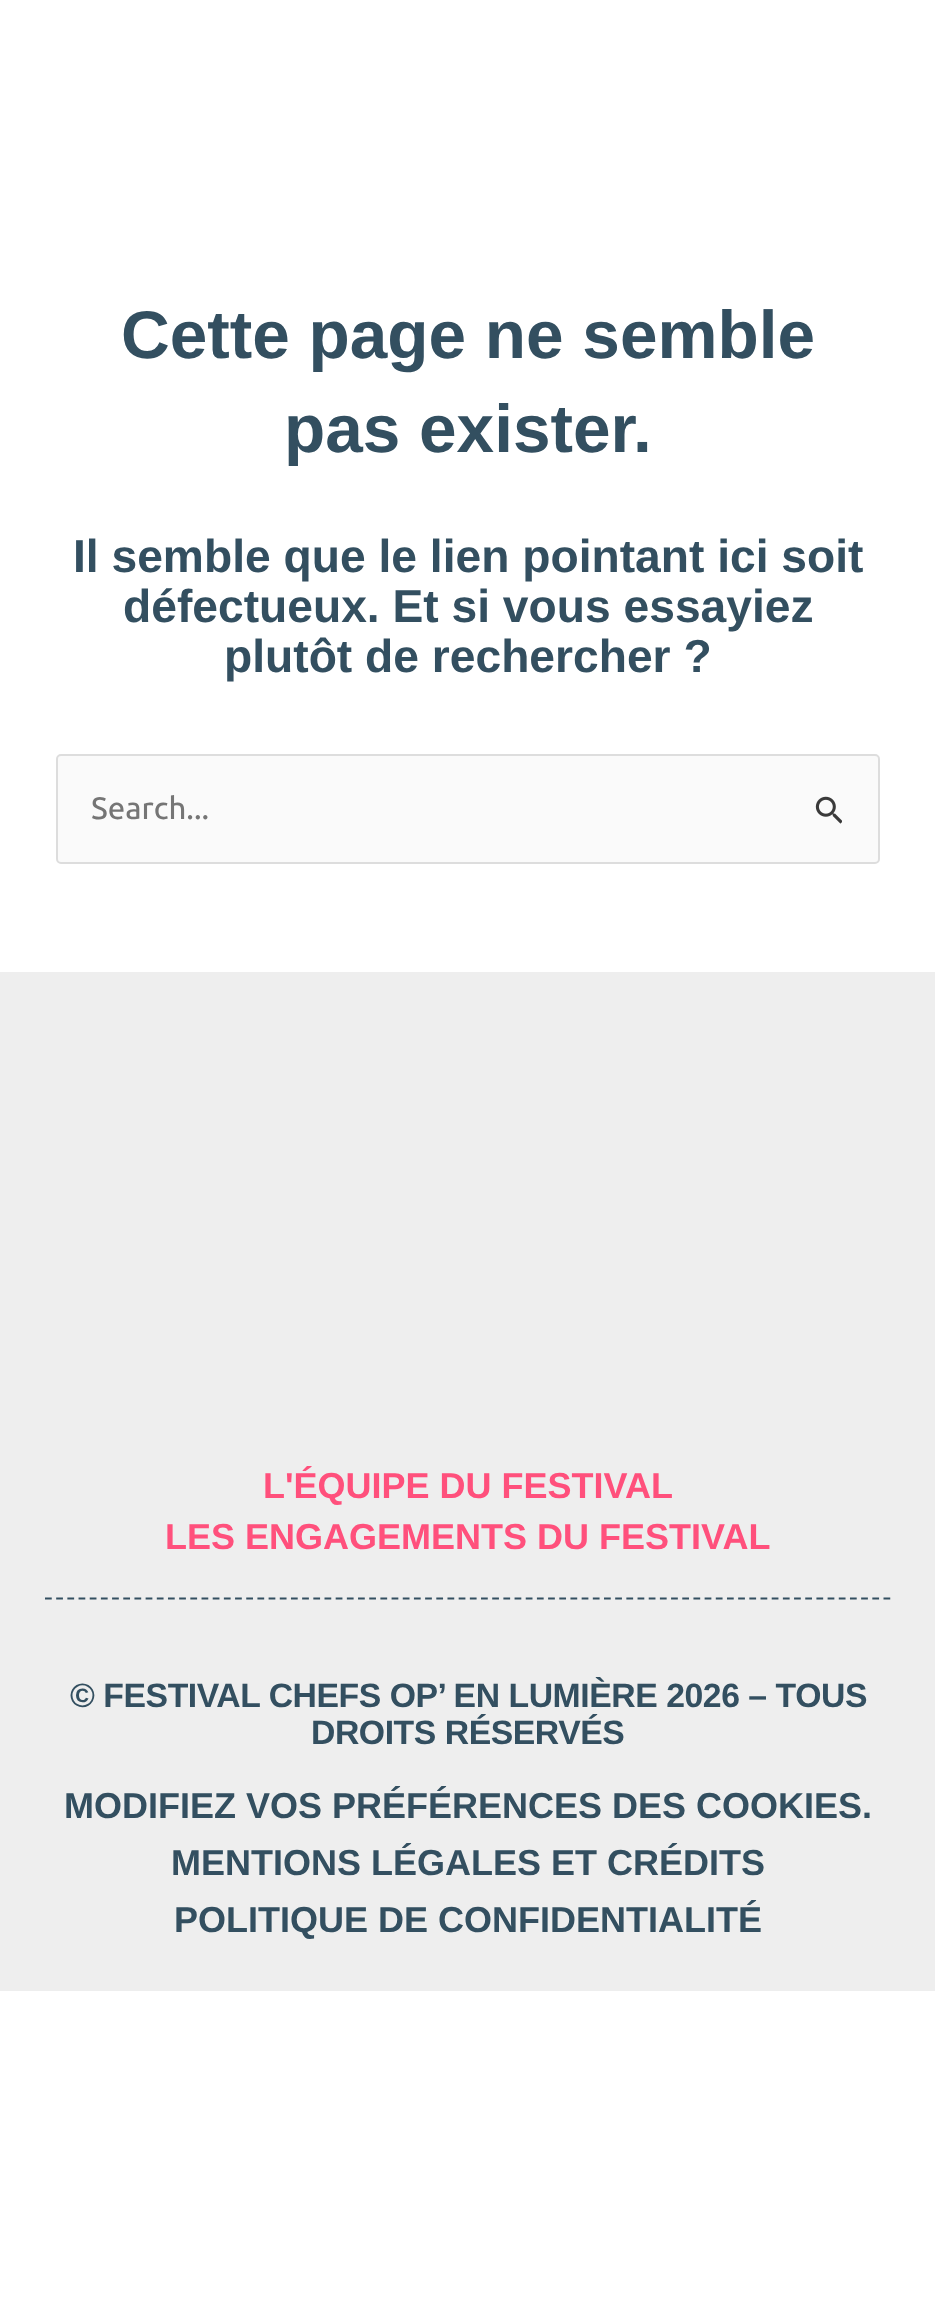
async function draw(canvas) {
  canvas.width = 935;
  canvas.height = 2305;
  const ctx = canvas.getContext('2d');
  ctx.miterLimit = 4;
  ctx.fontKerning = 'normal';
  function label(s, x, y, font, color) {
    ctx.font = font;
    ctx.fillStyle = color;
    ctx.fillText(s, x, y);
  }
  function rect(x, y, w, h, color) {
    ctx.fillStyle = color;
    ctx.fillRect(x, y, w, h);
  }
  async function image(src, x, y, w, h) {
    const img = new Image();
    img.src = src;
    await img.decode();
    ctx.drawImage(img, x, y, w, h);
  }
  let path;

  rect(0, 0, 935, 2305, '#fff');
  label('Cette page ne semble', 121, 358, 'bold 67.5px Liberation Sans', '#334f60');
  label('pas exister.', 284, 452, 'bold 67.5px Liberation Sans', '#334f60');
  label('Il semble que le lien pointant ici soit', 73, 572, 'bold 46.2px Liberation Sans', '#334f60');
  label('défectueux. Et si vous essayiez', 123, 622, 'bold 46.2px Liberation Sans', '#334f60');
  label('plutôt de rechercher ?', 224, 672, 'bold 46.2px Liberation Sans', '#334f60');
  ctx.fillStyle = '#fafafa';
  ctx.beginPath();
  ctx.roundRect(57, 755, 822, 108, 4);
  ctx.fill();
  ctx.strokeStyle = '#ddd';
  ctx.lineWidth = 2;
  ctx.stroke();
  label('Search...', 91, 819, '500 31px Ubuntu', '#757575');
  await image('assets/img1.png', 815, 796, 27, 28);
  rect(0, 972, 935, 1019, '#eee');
  label('L\'ÉQUIPE DU FESTIVAL', 263, 1498, 'bold 36px Liberation Sans', '#ff507c');
  label('LES ENGAGEMENTS DU FESTIVAL', 165, 1549, 'bold 36px Liberation Sans', '#ff507c');
  path = new Path2D('M45 1598.5H891');
  ctx.strokeStyle = '#334f60';
  ctx.lineWidth = 2.2;
  ctx.setLineDash([6.75, 4.43]);
  ctx.stroke(path);
  ctx.letterSpacing = '-0.45px';
  label('© FESTIVAL CHEFS OP’ EN LUMIÈRE 2026 – TOUS', 70, 1707, 'bold 33.75px Liberation Sans', '#334f60');
  label('DROITS RÉSERVÉS', 311, 1744, 'bold 33.75px Liberation Sans', '#334f60');
  ctx.letterSpacing = '0px';
  label('MODIFIEZ VOS PRÉFÉRENCES DES COOKIES.', 64, 1818, 'bold 36px Liberation Sans', '#334f60');
  label('MENTIONS LÉGALES ET CRÉDITS', 171, 1875, 'bold 36px Liberation Sans', '#334f60');
  label('POLITIQUE DE CONFIDENTIALITÉ', 174, 1932, 'bold 36px Liberation Sans', '#334f60');
}

draw(document.querySelector('canvas'));
